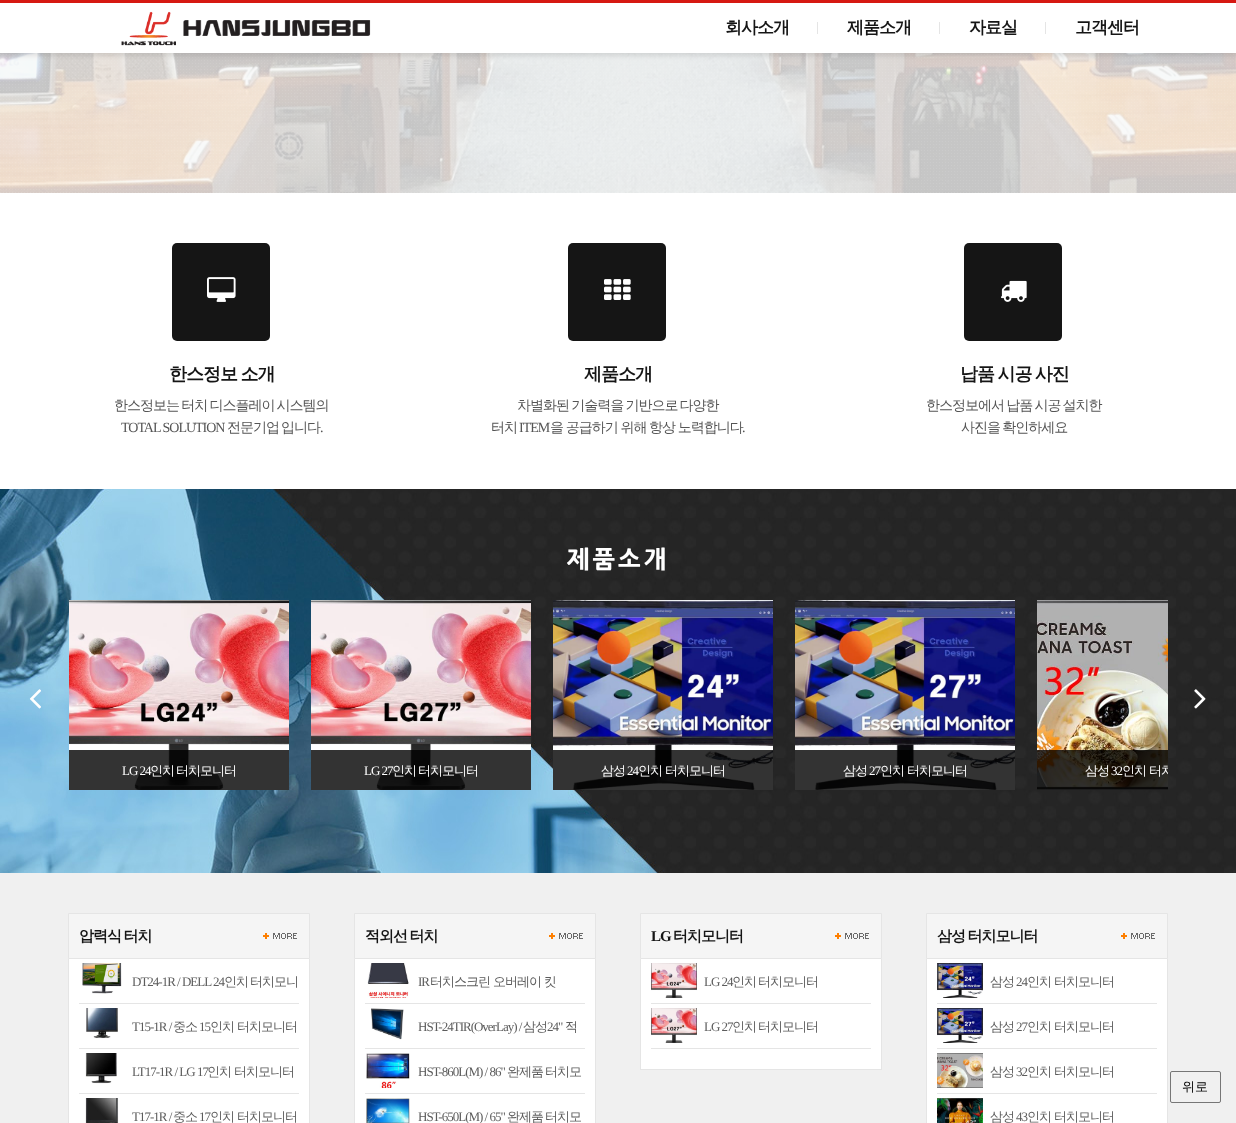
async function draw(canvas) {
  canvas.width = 1236;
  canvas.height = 1123;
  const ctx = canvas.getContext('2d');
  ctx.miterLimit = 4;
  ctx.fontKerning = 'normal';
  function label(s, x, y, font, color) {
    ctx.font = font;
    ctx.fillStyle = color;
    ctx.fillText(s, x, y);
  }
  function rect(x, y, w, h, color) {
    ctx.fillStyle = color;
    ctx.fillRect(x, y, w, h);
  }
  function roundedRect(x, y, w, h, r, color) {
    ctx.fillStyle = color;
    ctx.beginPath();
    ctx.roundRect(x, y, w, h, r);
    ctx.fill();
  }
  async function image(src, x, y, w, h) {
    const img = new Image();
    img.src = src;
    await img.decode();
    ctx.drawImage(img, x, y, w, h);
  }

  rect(0, 0, 1236, 1123, '#fff');
  await image('assets/img2.png', 0, 53, 1236, 140);
  await image('assets/img3.png', 0, 54, 1234, 139);
  ctx.fillStyle = '#0000001a';
  ctx.filter = 'blur(2.5px)';
  ctx.beginPath();
  ctx.rect(0, 3, 1236, 53);
  ctx.fill();
  ctx.filter = 'none';
  rect(0, 0, 1236, 3, '#d61812');
  rect(0, 3, 1236, 50, '#fff');
  await image('assets/img1.png', 121, 11, 250, 35);
  ctx.letterSpacing = '-1px';
  label('회사소개', 725, 33, 'bold 17px WenQuanYi Zen Hei', '#151515');
  rect(817, 22, 1, 12, '#e5e5e5');
  label('제품소개', 847, 33, 'bold 17px WenQuanYi Zen Hei', '#151515');
  rect(939, 22, 1, 12, '#e5e5e5');
  label('자료실', 969, 33, 'bold 17px WenQuanYi Zen Hei', '#151515');
  rect(1045, 22, 1, 12, '#e5e5e5');
  label('고객센터', 1075, 33, 'bold 17px WenQuanYi Zen Hei', '#151515');
  roundedRect(172, 243, 98, 98, 5, '#151515');
  await image('assets/img4.png', 207, 277, 29, 25);
  ctx.wordSpacing = '-1px';
  label('한스정보 소개', 169, 380, 'bold 18px WenQuanYi Zen Hei', '#151515');
  label('한스정보는 터치 디스플레이 시스템의', 114, 410, '500 14px WenQuanYi Zen Hei', '#555');
  ctx.wordSpacing = '0px';
  label('TOTAL SOLUTION', 121, 432, '14px Liberation Serif', '#555');
  label('전문기업', 227, 432, '500 14px WenQuanYi Zen Hei', '#555');
  label('입니다', 281, 432, '500 14px WenQuanYi Zen Hei', '#555');
  label('.', 320, 432, '14px Liberation Serif', '#555');
  roundedRect(568, 243, 98, 98, 5, '#151515');
  await image('assets/img5.png', 604, 279, 27, 21);
  label('제품소개', 584, 380, 'bold 18px WenQuanYi Zen Hei', '#151515');
  ctx.wordSpacing = '-1px';
  label('차별화된 기술력을 기반으로 다양한', 517, 410, '500 14px WenQuanYi Zen Hei', '#555');
  ctx.wordSpacing = '0px';
  label('터치', 491, 432, '500 14px WenQuanYi Zen Hei', '#555');
  label('ITEM', 519, 432, '14px Liberation Serif', '#555');
  ctx.wordSpacing = '-0.5px';
  label('을 공급하기 위해 항상 노력합니다', 550, 432, '500 14px WenQuanYi Zen Hei', '#555');
  ctx.wordSpacing = '0px';
  label('.', 742, 432, '14px Liberation Serif', '#555');
  roundedRect(964, 243, 98, 98, 5, '#151515');
  await image('assets/img6.png', 1001, 280, 26, 22);
  ctx.wordSpacing = '-1px';
  label('납품 시공 사진', 960, 380, 'bold 18px WenQuanYi Zen Hei', '#151515');
  label('한스정보에서 납품 시공 설치한', 926, 410, '500 14px WenQuanYi Zen Hei', '#555');
  label('사진을 확인하세요', 961, 432, '500 14px WenQuanYi Zen Hei', '#555');
  await image('assets/img7.png', 0, 489, 1236, 384);
  ctx.letterSpacing = '3px';
  ctx.wordSpacing = '0px';
  label('제품소개', 567, 568, '800 24px NanumGothic', '#fff');
  await image('assets/img8.png', 29, 689, 12, 20);
  await image('assets/img9.png', 1194, 689, 12, 20);
  await image('assets/img10.png', 69, 600, 220, 190);
  rect(69, 750, 220, 40, '#000000cc');
  ctx.letterSpacing = '-1px';
  label('LG 24', 122, 775, '13px Liberation Serif', '#fff');
  label('인치', 150, 775, '500 13px WenQuanYi Zen Hei', '#fff');
  label('터치모니터', 176, 775, '500 13px WenQuanYi Zen Hei', '#fff');
  await image('assets/img11.png', 311, 600, 220, 190);
  rect(311, 750, 220, 40, '#000000cc');
  label('LG 27', 364, 775, '13px Liberation Serif', '#fff');
  label('인치', 392, 775, '500 13px WenQuanYi Zen Hei', '#fff');
  label('터치모니터', 418, 775, '500 13px WenQuanYi Zen Hei', '#fff');
  await image('assets/img12.png', 553, 600, 220, 190);
  rect(553, 750, 220, 40, '#000000cc');
  label('삼성', 601, 775, '500 13px WenQuanYi Zen Hei', '#fff');
  label('24', 627, 775, '13px Liberation Serif', '#fff');
  label('인치 터치모니터', 638, 775, '500 13px WenQuanYi Zen Hei', '#fff');
  await image('assets/img13.png', 795, 600, 220, 190);
  rect(795, 750, 220, 40, '#000000cc');
  label('삼성', 843, 775, '500 13px WenQuanYi Zen Hei', '#fff');
  label('27', 869, 775, '13px Liberation Serif', '#fff');
  label('인치 터치모니터', 880, 775, '500 13px WenQuanYi Zen Hei', '#fff');
  await image('assets/img14.png', 1037, 600, 131, 190);
  rect(1037, 750, 131, 40, '#000000cc');
  label('삼성', 1085, 775, '500 13px WenQuanYi Zen Hei', '#fff');
  label('32', 1111, 775, '13px Liberation Serif', '#fff');
  ctx.save();
  ctx.beginPath();
  ctx.rect(1037, 760, 131, 20);
  ctx.clip();
  label('인치 터치', 1122, 775, '500 13px WenQuanYi Zen Hei', '#fff');
  ctx.restore();
  rect(0, 873, 1236, 250, '#f0f0f0');
  ctx.fillStyle = '#f5f5f5';
  ctx.beginPath();
  ctx.rect(68.5, 913.5, 241, 45);
  ctx.fill();
  ctx.strokeStyle = '#e5e5e5';
  ctx.stroke();
  ctx.wordSpacing = '-1px';
  label('압력식 터치', 79, 941, 'bold 15px WenQuanYi Zen Hei', '#151515');
  await image('assets/img15.png', 263, 933, 34, 6);
  rect(69, 959, 240, 164, '#fff');
  rect(309, 959, 1, 164, '#e5e5e5');
  rect(68, 959, 1, 164, '#e5e5e5');
  rect(79, 1003, 220, 1, '#e5e5e5');
  await image('assets/img16.png', 82, 963, 40, 31);
  ctx.wordSpacing = '0px';
  label('DT24-1R / DELL 24', 132, 986, '13px Liberation Serif', '#5c5c5c');
  label('인치', 224, 986, '500 13px WenQuanYi Zen Hei', '#5c5c5c');
  label('터치모니', 250, 986, '500 13px WenQuanYi Zen Hei', '#5c5c5c');
  rect(79, 1048, 220, 1, '#e5e5e5');
  await image('assets/img17.png', 86, 1008, 32, 31);
  ctx.save();
  ctx.beginPath();
  ctx.rect(132, 1016, 167, 20);
  ctx.clip();
  label('T15-1R /', 132, 1031, '13px Liberation Serif', '#5c5c5c');
  ctx.restore();
  label('중소', 173, 1031, '500 13px WenQuanYi Zen Hei', '#5c5c5c');
  label('15', 199, 1031, '13px Liberation Serif', '#5c5c5c');
  label('인치', 210, 1031, '500 13px WenQuanYi Zen Hei', '#5c5c5c');
  label('터치모니터', 237, 1031, '500 13px WenQuanYi Zen Hei', '#5c5c5c');
  rect(79, 1093, 220, 1, '#e5e5e5');
  await image('assets/img18.png', 85, 1053, 32, 31);
  label('LT17-1R / LG 17', 132, 1076, '13px Liberation Serif', '#5c5c5c');
  label('인치', 207, 1076, '500 13px WenQuanYi Zen Hei', '#5c5c5c');
  label('터치모니터', 234, 1076, '500 13px WenQuanYi Zen Hei', '#5c5c5c');
  await image('assets/img19.png', 85, 1098, 34, 25);
  ctx.save();
  ctx.beginPath();
  ctx.rect(132, 1106, 167, 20);
  ctx.clip();
  label('T17-1R /', 132, 1121, '13px Liberation Serif', '#5c5c5c');
  ctx.restore();
  label('중소', 173, 1121, '500 13px WenQuanYi Zen Hei', '#5c5c5c');
  label('17', 199, 1121, '13px Liberation Serif', '#5c5c5c');
  label('인치', 210, 1121, '500 13px WenQuanYi Zen Hei', '#5c5c5c');
  label('터치모니터', 237, 1121, '500 13px WenQuanYi Zen Hei', '#5c5c5c');
  ctx.fillStyle = '#f5f5f5';
  ctx.beginPath();
  ctx.rect(354.5, 913.5, 241, 45);
  ctx.fill();
  ctx.stroke();
  ctx.wordSpacing = '-1px';
  label('적외선 터치', 365, 941, 'bold 15px WenQuanYi Zen Hei', '#151515');
  await image('assets/img15.png', 549, 933, 34, 6);
  rect(355, 959, 240, 164, '#fff');
  rect(595, 959, 1, 164, '#e5e5e5');
  rect(354, 959, 1, 164, '#e5e5e5');
  rect(365, 1003, 220, 1, '#e5e5e5');
  await image('assets/img20.png', 367, 963, 42, 35);
  ctx.wordSpacing = '0px';
  label('IR', 418, 986, '13px Liberation Serif', '#5c5c5c');
  label('터치스크린 오버레이 킷', 430, 986, '500 13px WenQuanYi Zen Hei', '#5c5c5c');
  rect(365, 1048, 220, 1, '#e5e5e5');
  await image('assets/img21.png', 371, 1008, 33, 32);
  label('HST-24TIR(OverLay) /', 418, 1031, '13px Liberation Serif', '#5c5c5c');
  label('삼성', 523, 1031, '500 13px WenQuanYi Zen Hei', '#5c5c5c');
  label('24"', 547, 1031, '13px Liberation Serif', '#5c5c5c');
  label('적', 565, 1031, '500 13px WenQuanYi Zen Hei', '#5c5c5c');
  rect(365, 1093, 220, 1, '#e5e5e5');
  await image('assets/img22.png', 366, 1053, 44, 35);
  label('HST-860L(M) / 86"', 418, 1076, '13px Liberation Serif', '#5c5c5c');
  label('완제품', 507, 1076, '500 13px WenQuanYi Zen Hei', '#5c5c5c');
  label('터치모', 545, 1076, '500 13px WenQuanYi Zen Hei', '#5c5c5c');
  await image('assets/img23.png', 366, 1098, 44, 25);
  label('HST-650L(M) / 65"', 418, 1121, '13px Liberation Serif', '#5c5c5c');
  label('완제품', 507, 1121, '500 13px WenQuanYi Zen Hei', '#5c5c5c');
  label('터치모', 545, 1121, '500 13px WenQuanYi Zen Hei', '#5c5c5c');
  ctx.fillStyle = '#f5f5f5';
  ctx.beginPath();
  ctx.rect(640.5, 913.5, 241, 45);
  ctx.fill();
  ctx.stroke();
  label('LG', 651, 941, 'bold 15px Liberation Serif', '#151515');
  label('터치모니터', 673, 941, 'bold 15px WenQuanYi Zen Hei', '#151515');
  await image('assets/img15.png', 835, 933, 34, 6);
  rect(641, 959, 240, 110, '#fff');
  rect(881, 959, 1, 111, '#e5e5e5');
  rect(640, 1069, 242, 1, '#e5e5e5');
  rect(640, 959, 1, 111, '#e5e5e5');
  rect(651, 1003, 220, 1, '#e5e5e5');
  await image('assets/img24.png', 651, 963, 46, 35);
  label('LG 24', 704, 986, '13px Liberation Serif', '#5c5c5c');
  label('인치', 732, 986, '500 13px WenQuanYi Zen Hei', '#5c5c5c');
  label('터치모니터', 758, 986, '500 13px WenQuanYi Zen Hei', '#5c5c5c');
  rect(651, 1048, 220, 1, '#e5e5e5');
  await image('assets/img25.png', 651, 1008, 46, 35);
  label('LG 27', 704, 1031, '13px Liberation Serif', '#5c5c5c');
  label('인치', 732, 1031, '500 13px WenQuanYi Zen Hei', '#5c5c5c');
  label('터치모니터', 758, 1031, '500 13px WenQuanYi Zen Hei', '#5c5c5c');
  ctx.fillStyle = '#f5f5f5';
  ctx.beginPath();
  ctx.rect(926.5, 913.5, 241, 45);
  ctx.fill();
  ctx.stroke();
  ctx.wordSpacing = '-1px';
  label('삼성 터치모니터', 937, 941, 'bold 15px WenQuanYi Zen Hei', '#151515');
  await image('assets/img15.png', 1121, 933, 34, 6);
  rect(927, 959, 240, 164, '#fff');
  rect(1167, 959, 1, 164, '#e5e5e5');
  rect(926, 959, 1, 164, '#e5e5e5');
  rect(937, 1003, 220, 1, '#e5e5e5');
  await image('assets/img26.png', 937, 963, 46, 35);
  ctx.wordSpacing = '0px';
  label('삼성', 990, 986, '500 13px WenQuanYi Zen Hei', '#5c5c5c');
  label('24', 1016, 986, '13px Liberation Serif', '#5c5c5c');
  label('인치 터치모니터', 1027, 986, '500 13px WenQuanYi Zen Hei', '#5c5c5c');
  rect(937, 1048, 220, 1, '#e5e5e5');
  await image('assets/img27.png', 937, 1008, 46, 35);
  label('삼성', 990, 1031, '500 13px WenQuanYi Zen Hei', '#5c5c5c');
  label('27', 1016, 1031, '13px Liberation Serif', '#5c5c5c');
  label('인치 터치모니터', 1027, 1031, '500 13px WenQuanYi Zen Hei', '#5c5c5c');
  rect(937, 1093, 220, 1, '#e5e5e5');
  await image('assets/img28.png', 937, 1053, 46, 35);
  label('삼성', 990, 1076, '500 13px WenQuanYi Zen Hei', '#5c5c5c');
  label('32', 1016, 1076, '13px Liberation Serif', '#5c5c5c');
  label('인치 터치모니터', 1027, 1076, '500 13px WenQuanYi Zen Hei', '#5c5c5c');
  await image('assets/img29.png', 937, 1098, 46, 25);
  label('삼성', 990, 1121, '500 13px WenQuanYi Zen Hei', '#5c5c5c');
  label('43', 1016, 1121, '13px Liberation Serif', '#5c5c5c');
  label('인치 터치모니터', 1027, 1121, '500 13px WenQuanYi Zen Hei', '#5c5c5c');
  ctx.beginPath();
  ctx.roundRect(1170.5, 1071.5, 50, 31, 1.5);
  ctx.strokeStyle = '#767676';
  ctx.stroke();
  ctx.letterSpacing = '0px';
  label('위로', 1182, 1091, '500 13px WenQuanYi Zen Hei', '#000');
}

draw(document.querySelector('canvas'));
